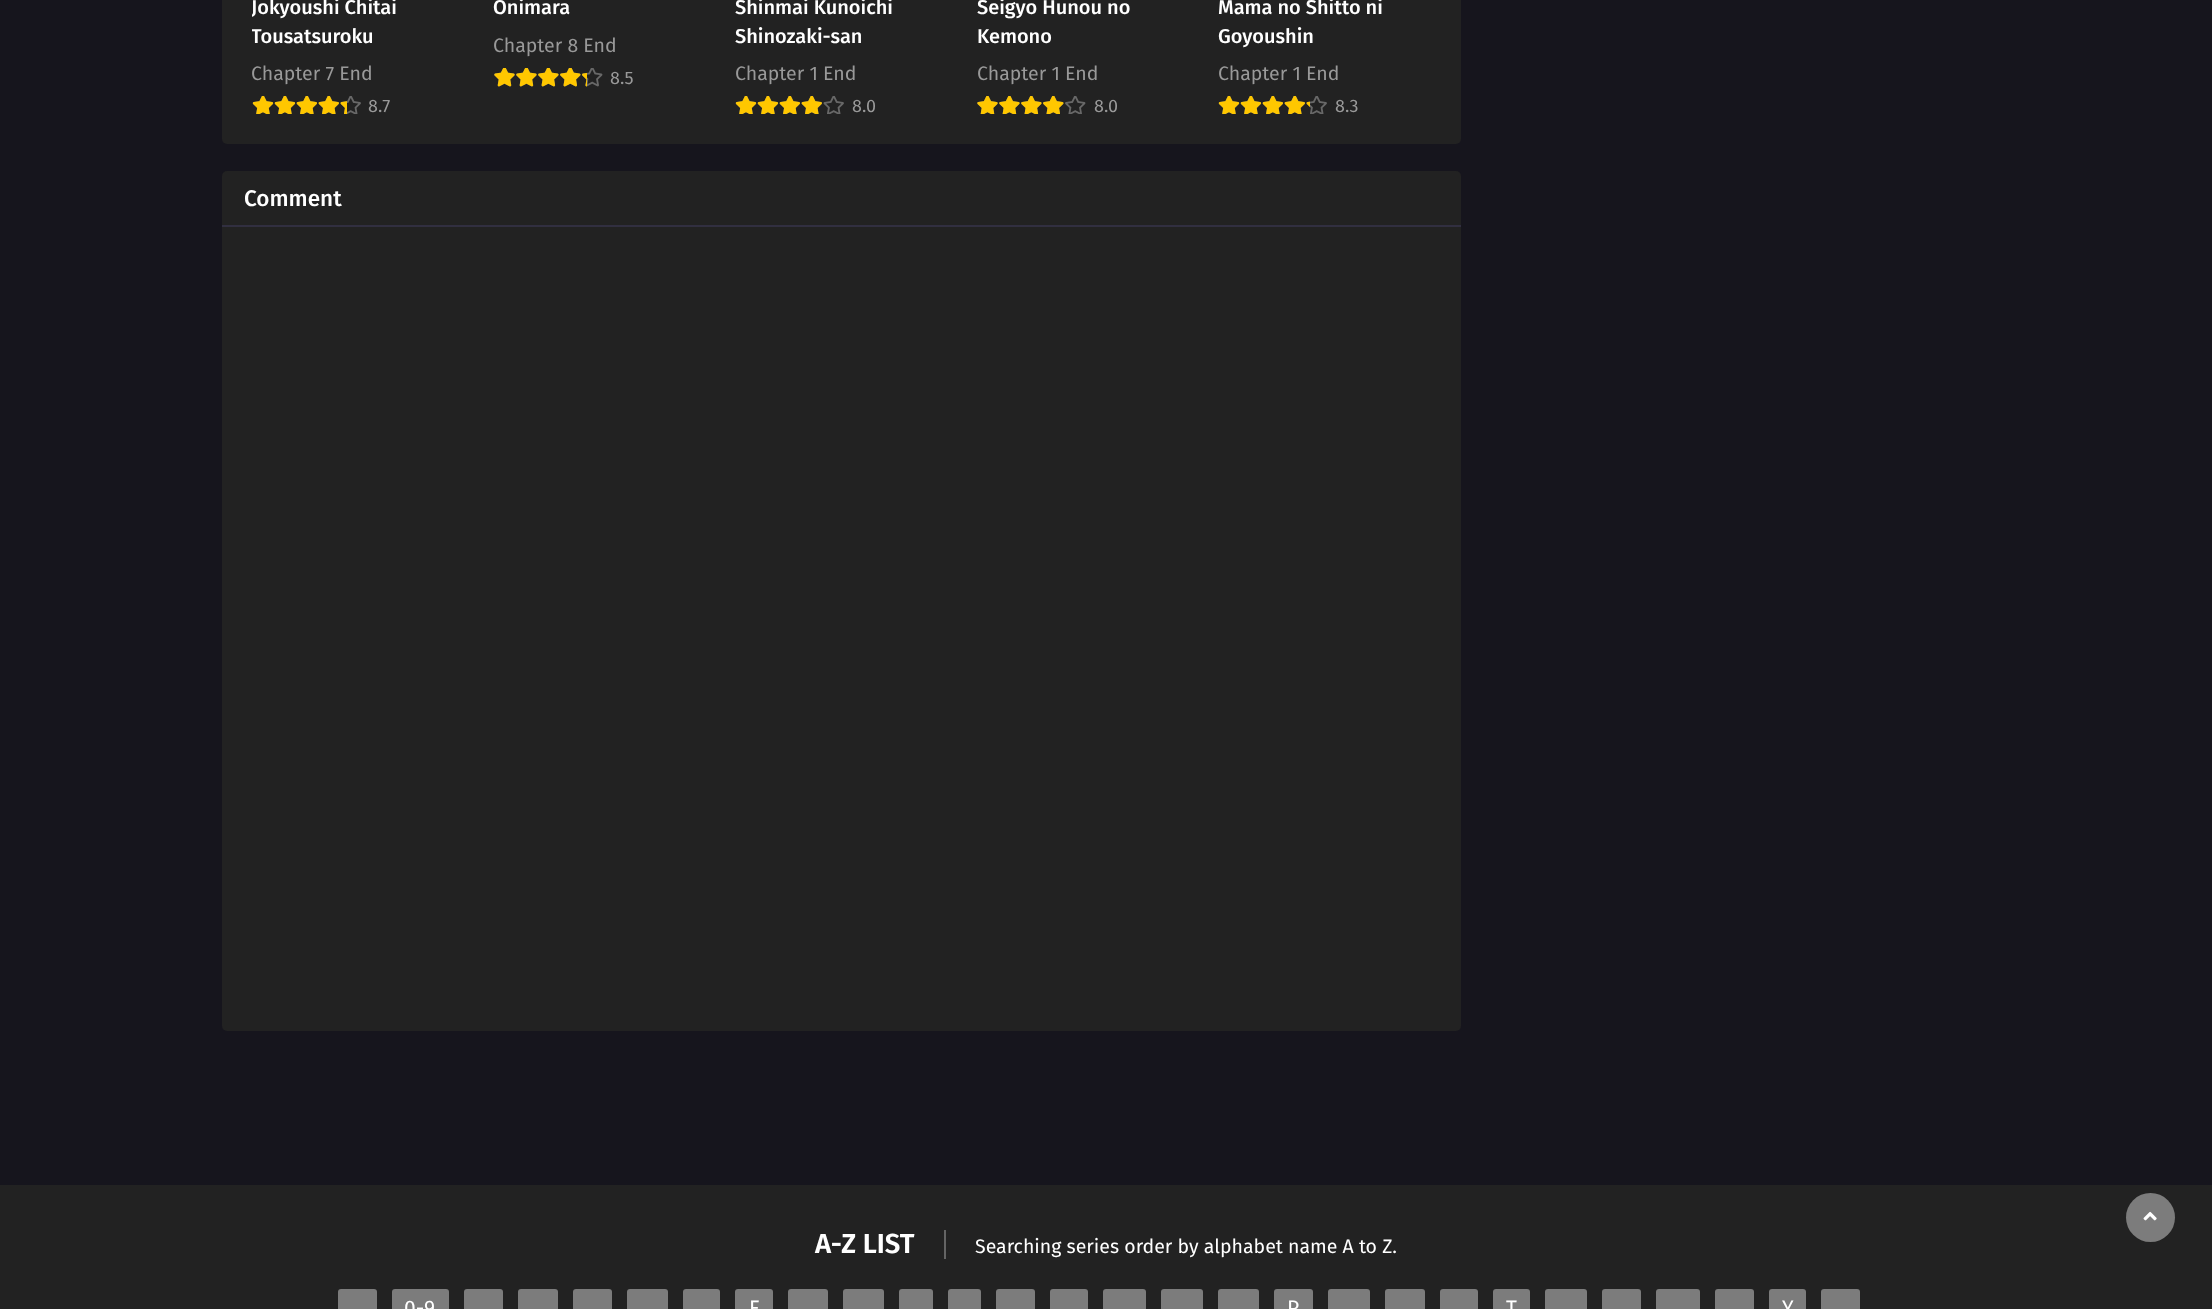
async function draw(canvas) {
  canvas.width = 2212;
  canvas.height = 1309;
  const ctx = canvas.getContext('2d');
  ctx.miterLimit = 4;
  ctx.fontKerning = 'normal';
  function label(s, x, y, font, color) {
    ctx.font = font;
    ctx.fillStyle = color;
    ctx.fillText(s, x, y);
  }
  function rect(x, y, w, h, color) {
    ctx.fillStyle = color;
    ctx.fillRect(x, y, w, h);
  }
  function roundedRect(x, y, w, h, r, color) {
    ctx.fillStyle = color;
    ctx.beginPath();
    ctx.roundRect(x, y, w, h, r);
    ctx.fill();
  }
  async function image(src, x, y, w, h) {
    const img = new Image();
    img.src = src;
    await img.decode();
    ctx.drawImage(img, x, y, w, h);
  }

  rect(0, 0, 2212, 1309, '#16151d');
  roundedRect(222, -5, 1239, 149, 5, '#222');
  ctx.save();
  ctx.beginPath();
  ctx.rect(252, 0, 212, 51);
  ctx.clip();
  label('Jokyoushi Chitai', 251, 14, '500 20px Fira Sans', '#fff');
  label('Tousatsuroku', 251, 43, '500 20px Fira Sans', '#fff');
  ctx.restore();
  label('Chapter 7 End', 251, 80, '19.5px Fira Sans', '#999');
  await image('assets/img1.png', 252, 96, 109, 18);
  await image('assets/img2.png', 252, 96, 95, 18);
  label('8.7', 368, 112, '18px Fira Sans', '#999');
  label('Onimara', 493, 14, '500 20px Fira Sans', '#fff');
  label('Chapter 8 End', 493, 52, '19.5px Fira Sans', '#999');
  await image('assets/img3.png', 494, 68, 109, 19);
  await image('assets/img4.png', 494, 68, 93, 19);
  label('8.5', 610, 84, '18px Fira Sans', '#999');
  label('Shinmai Kunoichi', 735, 14, '500 20px Fira Sans', '#fff');
  label('Shinozaki-san', 735, 43, '500 20px Fira Sans', '#fff');
  label('Chapter 1 End', 735, 80, '19.5px Fira Sans', '#999');
  await image('assets/img1.png', 735, 96, 109, 18);
  await image('assets/img5.png', 735, 96, 87, 18);
  label('8.0', 852, 112, '18px Fira Sans', '#999');
  label('Seigyo Hunou no', 977, 14, '500 20px Fira Sans', '#fff');
  label('Kemono', 977, 43, '500 20px Fira Sans', '#fff');
  label('Chapter 1 End', 977, 80, '19.5px Fira Sans', '#999');
  await image('assets/img6.png', 977, 96, 109, 18);
  await image('assets/img7.png', 977, 96, 87, 18);
  label('8.0', 1094, 112, '18px Fira Sans', '#999');
  label('Mama no Shitto ni', 1218, 14, '500 20px Fira Sans', '#fff');
  label('Goyoushin', 1218, 43, '500 20px Fira Sans', '#fff');
  label('Chapter 1 End', 1218, 80, '19.5px Fira Sans', '#999');
  await image('assets/img1.png', 1218, 96, 109, 18);
  await image('assets/img8.png', 1218, 96, 92, 18);
  label('8.3', 1335, 112, '18px Fira Sans', '#999');
  roundedRect(222, 171, 1239, 860, 5, '#222');
  rect(222, 225, 1239, 2, '#312f40');
  label('Comment', 244, 206, '500 22.5px Fira Sans', '#fff');
  rect(0, 1185, 2212, 124, '#222');
  rect(944, 1230, 2, 29, '#646464');
  label('A-Z LIST', 815, 1253, '600 27.5px Fira Sans', '#fff');
  label('Searching series order by alphabet name A to Z.', 975, 1253, '19.5px Fira Sans', '#fff');
  roundedRect(338, 1289, 39, 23, 3, '#7c7c7c');
  roundedRect(392, 1289, 57, 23, 3, '#7c7c7c');
  label('0-9', 404, 1315, '21px Fira Sans', '#fff');
  roundedRect(464, 1289, 39, 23, 3, '#7c7c7c');
  roundedRect(518, 1289, 40, 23, 3, '#7c7c7c');
  roundedRect(573, 1289, 39, 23, 3, '#7c7c7c');
  roundedRect(627, 1289, 41, 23, 3, '#7c7c7c');
  roundedRect(683, 1289, 37, 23, 3, '#7c7c7c');
  roundedRect(735, 1289, 38, 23, 3, '#7c7c7c');
  label('F', 749, 1315, '21px Fira Sans', '#fff');
  roundedRect(788, 1289, 40, 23, 3, '#7c7c7c');
  roundedRect(843, 1289, 41, 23, 3, '#7c7c7c');
  roundedRect(899, 1289, 34, 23, 3, '#7c7c7c');
  roundedRect(948, 1289, 33, 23, 3, '#7c7c7c');
  roundedRect(996, 1289, 39, 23, 3, '#7c7c7c');
  roundedRect(1050, 1289, 38, 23, 3, '#7c7c7c');
  roundedRect(1103, 1289, 43, 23, 3, '#7c7c7c');
  roundedRect(1161, 1289, 42, 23, 3, '#7c7c7c');
  roundedRect(1218, 1289, 41, 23, 3, '#7c7c7c');
  roundedRect(1274, 1289, 39, 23, 3, '#7c7c7c');
  label('P', 1287, 1315, '21px Fira Sans', '#fff');
  roundedRect(1328, 1289, 42, 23, 3, '#7c7c7c');
  roundedRect(1385, 1289, 40, 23, 3, '#7c7c7c');
  roundedRect(1440, 1289, 38, 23, 3, '#7c7c7c');
  roundedRect(1493, 1289, 37, 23, 3, '#7c7c7c');
  label('T', 1506, 1315, '21px Fira Sans', '#fff');
  roundedRect(1545, 1289, 42, 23, 3, '#7c7c7c');
  roundedRect(1602, 1289, 39, 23, 3, '#7c7c7c');
  roundedRect(1656, 1289, 44, 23, 3, '#7c7c7c');
  roundedRect(1715, 1289, 39, 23, 3, '#7c7c7c');
  roundedRect(1769, 1289, 37, 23, 3, '#7c7c7c');
  label('Y', 1782, 1315, '21px Fira Sans', '#fff');
  roundedRect(1821, 1289, 39, 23, 3, '#7c7c7c');
  ctx.beginPath();
  ctx.arc(2150.5, 1217.5, 24.5, 0, 2 * Math.PI);
  ctx.fill();
  await image('assets/img9.png', 2143, 1211, 14, 10);
}

draw(document.querySelector('canvas'));
